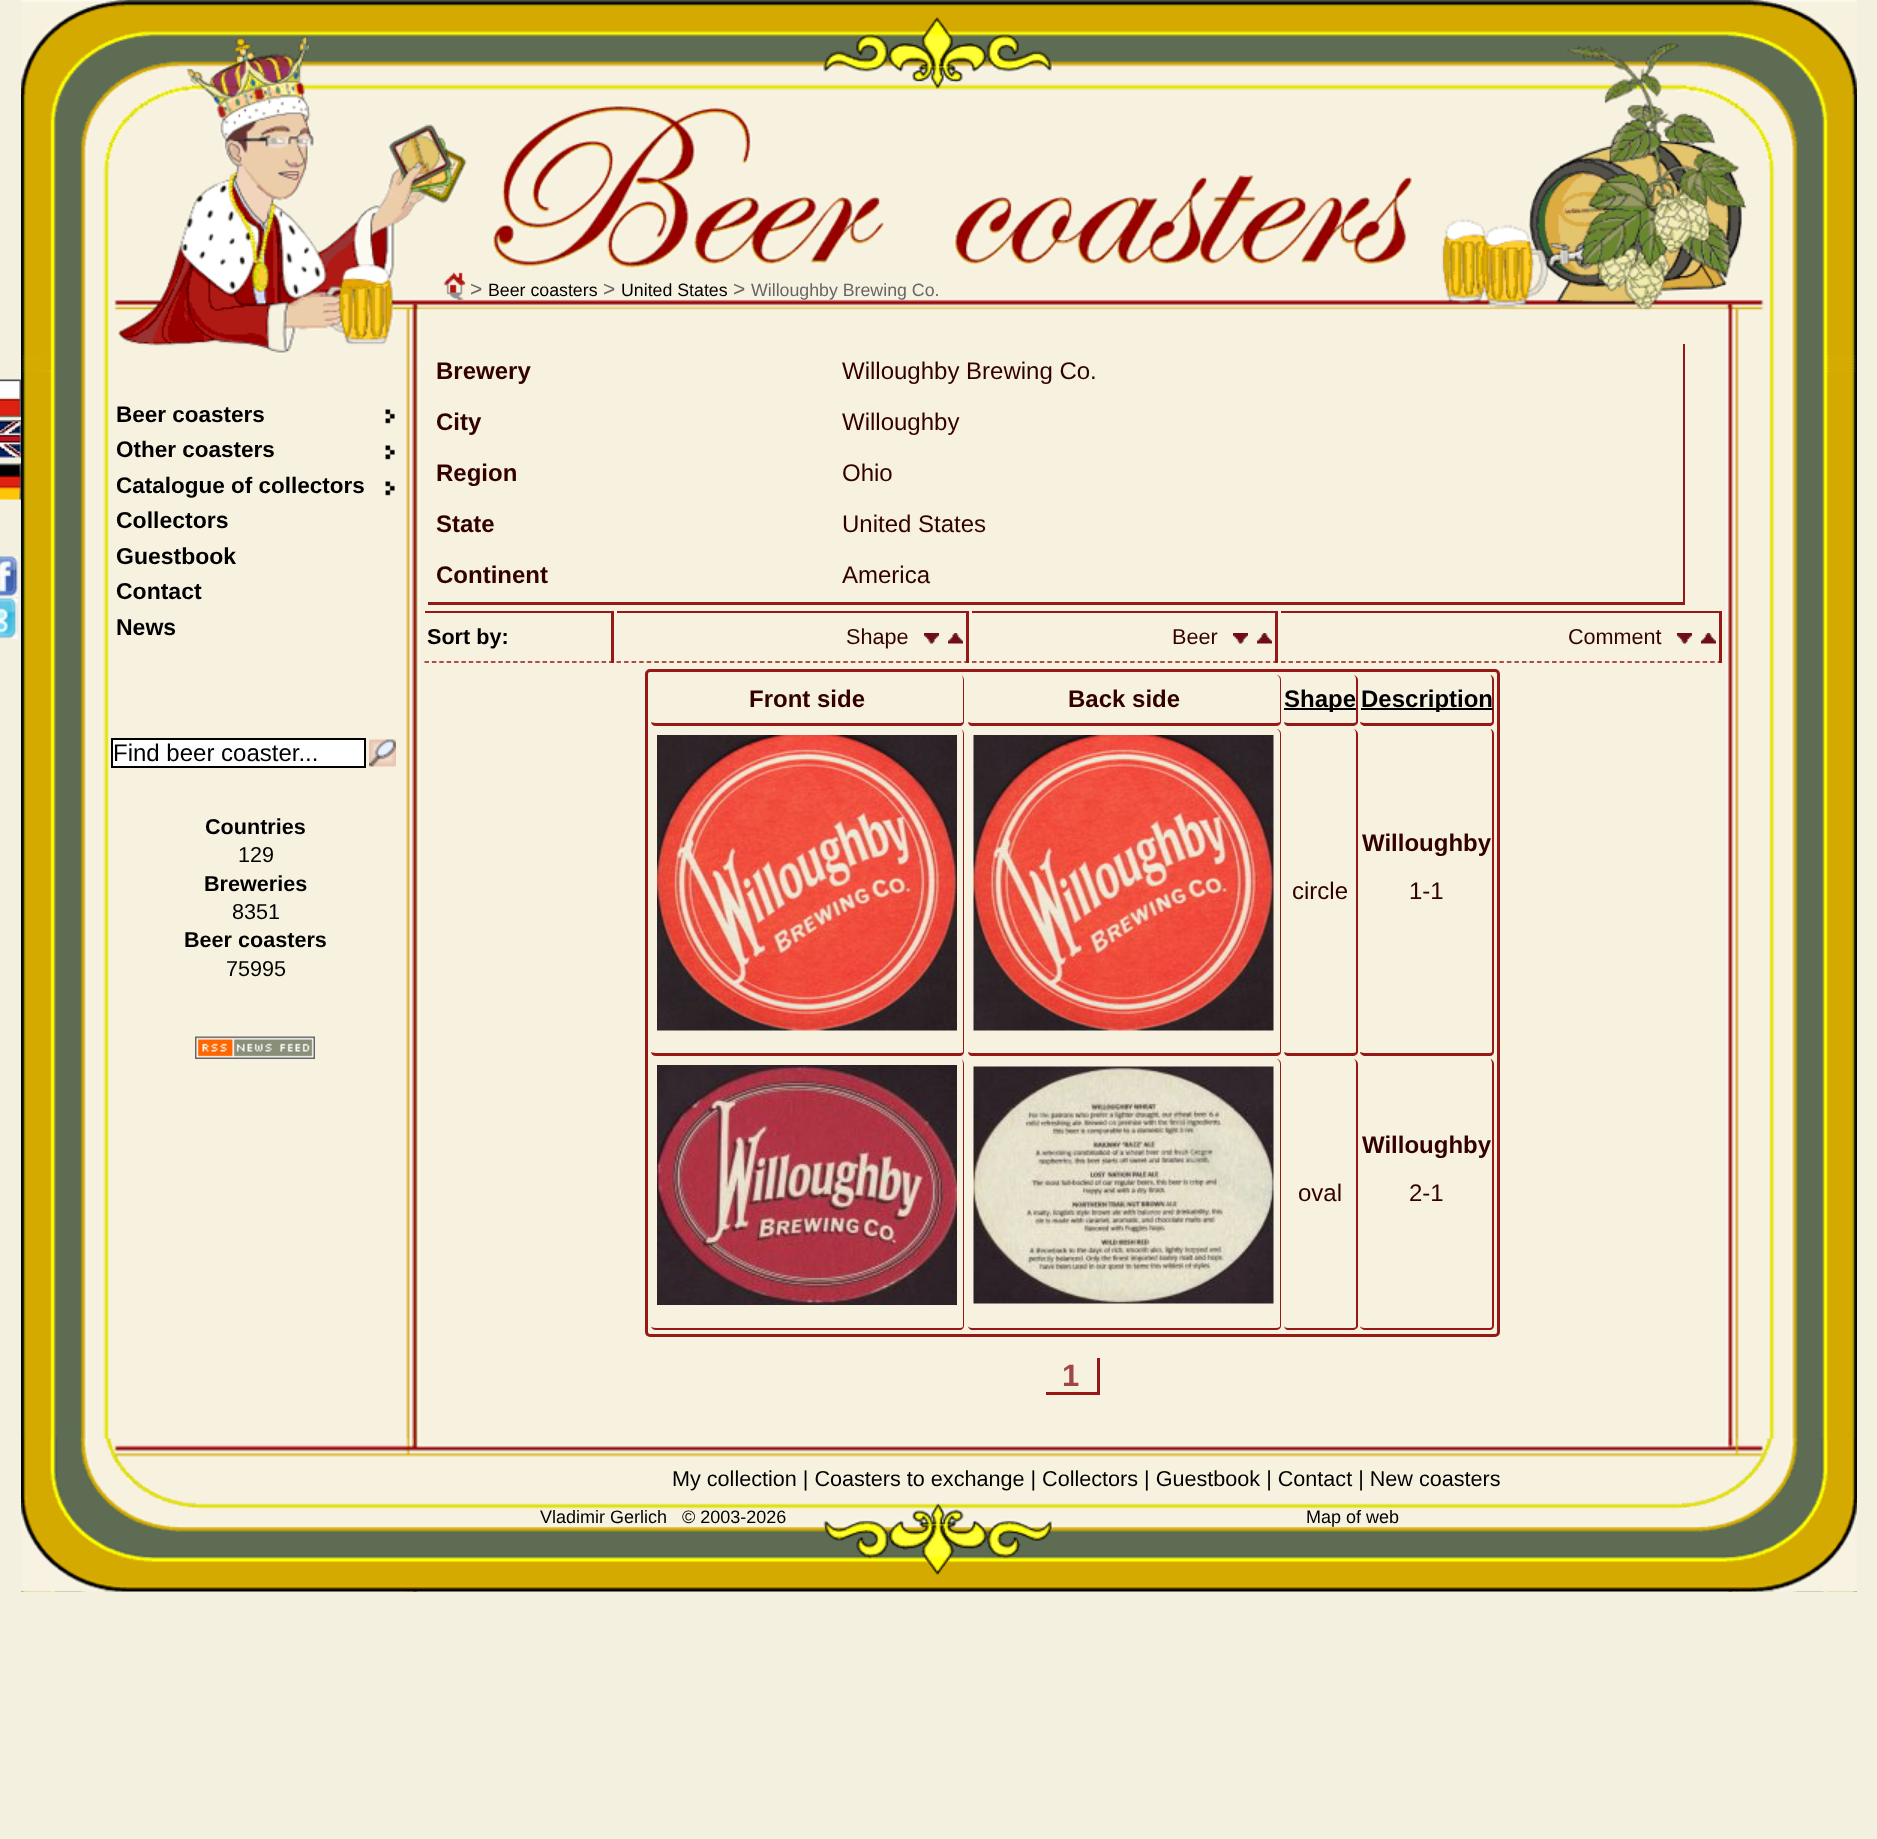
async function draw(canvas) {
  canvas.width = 1877;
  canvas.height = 1839;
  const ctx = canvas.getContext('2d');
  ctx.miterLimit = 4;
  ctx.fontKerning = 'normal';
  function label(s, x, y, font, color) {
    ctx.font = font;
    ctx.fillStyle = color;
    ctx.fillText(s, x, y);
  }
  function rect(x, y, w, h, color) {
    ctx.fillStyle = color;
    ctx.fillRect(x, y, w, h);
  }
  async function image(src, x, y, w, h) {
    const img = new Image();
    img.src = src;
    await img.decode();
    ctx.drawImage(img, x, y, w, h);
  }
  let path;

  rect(0, 0, 1877, 1839, '#f3f0e0');
  await image('assets/img1.png', 21, 0, 1836, 372);
  await image('assets/img2.png', 443, 272, 23, 29);
  label('>', 470, 296, '21px Liberation Sans', '#666');
  label('Beer coasters', 488, 296, '17.75px Liberation Sans', '#000');
  label('>', 603, 296, '21px Liberation Sans', '#666');
  label('United States', 621, 296, '17.75px Liberation Sans', '#000');
  label('>', 733, 296, '21px Liberation Sans', '#666');
  label('Willoughby Brewing Co.', 751, 296, '17.75px Liberation Sans', '#666');
  await image('assets/img3.png', 21, 372, 1836, 1220);
  await image('assets/img4.png', 0, 379, 21, 39);
  await image('assets/img5.png', 0, 420, 21, 38);
  await image('assets/img6.png', 0, 463, 21, 37);
  await image('assets/img7.png', 0, 556, 18, 41);
  await image('assets/img8.png', 0, 597, 18, 42);
  await image('assets/img9.png', 385, 409, 10, 15);
  label('Beer coasters', 116, 422, 'bold 22.5px Liberation Sans', '#000');
  await image('assets/img9.png', 385, 445, 10, 15);
  label('Other coasters', 116, 457, 'bold 22.5px Liberation Sans', '#000');
  await image('assets/img9.png', 385, 481, 10, 15);
  label('Catalogue of collectors', 116, 493, 'bold 22.5px Liberation Sans', '#000');
  label('Collectors', 116, 528, 'bold 23px Liberation Sans', '#000');
  label('Guestbook', 116, 564, 'bold 23px Liberation Sans', '#000');
  label('Contact', 116, 599, 'bold 23px Liberation Sans', '#000');
  label('News', 116, 635, 'bold 23px Liberation Sans', '#000');
  ctx.fillStyle = '#fff';
  ctx.beginPath();
  ctx.rect(112, 739, 253, 28);
  ctx.fill();
  ctx.strokeStyle = '#000';
  ctx.lineWidth = 2;
  ctx.stroke();
  label('Find beer coaster...', 113, 761, '24px Liberation Sans', '#000');
  await image('assets/img10.png', 369, 739, 27, 28);
  label('Countries', 205, 834, 'bold 21.6px Liberation Sans', '#000');
  label('129', 238, 862, '21.6px Liberation Sans', '#000');
  label('Breweries', 204, 891, 'bold 21.6px Liberation Sans', '#000');
  label('8351', 232, 919, '21.6px Liberation Sans', '#000');
  label('Beer coasters', 184, 947, 'bold 21.6px Liberation Sans', '#000');
  label('75995', 226, 976, '21.6px Liberation Sans', '#000');
  await image('assets/img11.png', 195, 1036, 120, 23);
  rect(1683, 344, 2, 261, '#961917');
  rect(428, 602, 1257, 3, '#961917');
  label('Brewery', 436, 379, 'bold 24px Liberation Sans', '#300');
  label('Willoughby Brewing Co.', 842, 379, '24px Liberation Sans', '#300');
  label('City', 436, 430, 'bold 24px Liberation Sans', '#300');
  label('Willoughby', 842, 430, '24px Liberation Sans', '#300');
  label('Region', 436, 481, 'bold 24px Liberation Sans', '#300');
  label('Ohio', 842, 481, '24px Liberation Sans', '#300');
  label('State', 436, 532, 'bold 24px Liberation Sans', '#300');
  label('United States', 842, 532, '24px Liberation Sans', '#300');
  label('Continent', 436, 583, 'bold 24px Liberation Sans', '#300');
  label('America', 842, 583, '24px Liberation Sans', '#300');
  rect(425, 611, 189, 2, '#961917');
  rect(611, 611, 3, 52, '#961917');
  path = new Path2D('M424.5 662H613.5');
  ctx.strokeStyle = '#961917';
  ctx.lineWidth = 1.5;
  ctx.setLineDash([4.5, 2.88]);
  ctx.stroke(path);
  label('Sort by:', 427, 644, 'bold 21.6px Liberation Sans', '#000');
  rect(617, 611, 352, 2, '#961917');
  rect(966, 611, 3, 52, '#961917');
  path = new Path2D('M616.5 662H969');
  ctx.setLineDash([4.5, 3.06]);
  ctx.stroke(path);
  label('Shape', 846, 644, '21.6px Liberation Sans', '#300');
  await image('assets/img12.png', 924, 633, 15, 11);
  await image('assets/img13.png', 948, 633, 15, 11);
  rect(972, 611, 306, 2, '#961917');
  rect(1275, 611, 3, 52, '#961917');
  path = new Path2D('M972 662H1278');
  ctx.setLineDash([4.5, 3.03]);
  ctx.stroke(path);
  label('Beer', 1172, 644, '21.6px Liberation Sans', '#300');
  await image('assets/img14.png', 1233, 633, 15, 11);
  await image('assets/img15.png', 1257, 633, 15, 11);
  rect(1281, 611, 441, 2, '#961917');
  rect(1719, 611, 3, 52, '#961917');
  path = new Path2D('M1281 662H1722');
  ctx.stroke(path);
  label('Comment', 1568, 644, '21.6px Liberation Sans', '#300');
  await image('assets/img12.png', 1677, 633, 15, 11);
  await image('assets/img13.png', 1701, 633, 15, 11);
  ctx.beginPath();
  ctx.roundRect(646.5, 670.5, 852, 665, 3.5);
  ctx.lineWidth = 3;
  ctx.setLineDash([]);
  ctx.stroke();
  ctx.fillStyle = '#961917';
  path = new Path2D('M656 675H960C962 675 964 677 964 680V722C964 724 962 726 960 726H656C653 726 651 724 651 722V680C651 677 653 675 656 675ZM656 675H960C962 675 963 677 963 680V722C963 722 962 723 960 723H656C653 723 651 722 651 722V680C651 677 653 675 656 675Z');
  ctx.fill(path, 'evenodd');
  label('Front side', 749, 707, 'bold 24px Liberation Sans', '#300');
  ctx.fillStyle = '#961917';
  path = new Path2D('M972 675H1276C1279 675 1281 677 1281 680V722C1281 724 1279 726 1276 726H972C970 726 968 724 968 722V680C968 677 970 675 972 675ZM972 675H1276C1278 675 1280 677 1280 680V722C1280 722 1278 723 1276 723H972C970 723 968 722 968 722V680C968 677 970 675 972 675Z');
  ctx.fill(path, 'evenodd');
  label('Back side', 1068, 707, 'bold 24px Liberation Sans', '#300');
  ctx.fillStyle = '#961917';
  path = new Path2D('M1288 675H1353C1355 675 1358 677 1358 680V722C1358 724 1355 726 1353 726H1288C1286 726 1284 724 1284 722V680C1284 677 1286 675 1288 675ZM1288 675H1353C1355 675 1356 677 1356 680V722C1356 722 1355 723 1353 723H1288C1286 723 1284 722 1284 722V680C1284 677 1286 675 1288 675Z');
  ctx.fill(path, 'evenodd');
  rect(1284, 708, 72, 2, '#000');
  label('Shape', 1284, 707, 'bold 24px Liberation Sans', '#000');
  ctx.fillStyle = '#961917';
  path = new Path2D('M1365 675H1490C1492 675 1494 677 1494 680V722C1494 724 1492 726 1490 726H1365C1363 726 1360 724 1360 722V680C1360 677 1363 675 1365 675ZM1365 675H1490C1491 675 1492 677 1492 680V722C1492 722 1491 723 1490 723H1365C1363 723 1360 722 1360 722V680C1360 677 1363 675 1365 675Z');
  ctx.fill(path, 'evenodd');
  rect(1361, 708, 132, 2, '#000');
  label('Description', 1361, 707, 'bold 24px Liberation Sans', '#000');
  ctx.fillStyle = '#961917';
  path = new Path2D('M656 729H960C962 729 964 731 964 734V1052C964 1054 962 1056 960 1056H656C653 1056 651 1054 651 1052V734C651 731 653 729 656 729ZM656 729H960C962 729 963 731 963 734V1052C963 1052 962 1053 960 1053H656C653 1053 651 1052 651 1052V734C651 731 653 729 656 729Z');
  ctx.fill(path, 'evenodd');
  await image('assets/img16.png', 657, 735, 300, 296);
  path = new Path2D('M972 729H1276C1279 729 1281 731 1281 734V1052C1281 1054 1279 1056 1276 1056H972C970 1056 968 1054 968 1052V734C968 731 970 729 972 729ZM972 729H1276C1278 729 1280 731 1280 734V1052C1280 1052 1278 1053 1276 1053H972C970 1053 968 1052 968 1052V734C968 731 970 729 972 729Z');
  ctx.fill(path, 'evenodd');
  await image('assets/img17.png', 973, 735, 301, 296);
  path = new Path2D('M1288 729H1353C1355 729 1358 731 1358 734V1052C1358 1054 1355 1056 1353 1056H1288C1286 1056 1284 1054 1284 1052V734C1284 731 1286 729 1288 729ZM1288 729H1353C1355 729 1356 731 1356 734V1052C1356 1052 1355 1053 1353 1053H1288C1286 1053 1284 1052 1284 1052V734C1284 731 1286 729 1288 729Z');
  ctx.fill(path, 'evenodd');
  label('circle', 1292, 899, '24px Liberation Sans', '#300');
  ctx.fillStyle = '#961917';
  path = new Path2D('M1365 729H1490C1492 729 1494 731 1494 734V1052C1494 1054 1492 1056 1490 1056H1365C1363 1056 1360 1054 1360 1052V734C1360 731 1363 729 1365 729ZM1365 729H1490C1491 729 1492 731 1492 734V1052C1492 1052 1491 1053 1490 1053H1365C1363 1053 1360 1052 1360 1052V734C1360 731 1363 729 1365 729Z');
  ctx.fill(path, 'evenodd');
  label('Willoughby', 1362, 851, 'bold 24px Liberation Sans', '#300');
  label('1-1', 1409, 899, '24px Liberation Sans', '#300');
  ctx.fillStyle = '#961917';
  path = new Path2D('M656 1059H960C962 1059 964 1061 964 1064V1326C964 1328 962 1330 960 1330H656C653 1330 651 1328 651 1326V1064C651 1061 653 1059 656 1059ZM656 1059H960C962 1059 963 1061 963 1064V1326C963 1327 962 1328 960 1328H656C653 1328 651 1327 651 1326V1064C651 1061 653 1059 656 1059Z');
  ctx.fill(path, 'evenodd');
  await image('assets/img18.png', 657, 1065, 300, 240);
  path = new Path2D('M972 1059H1276C1279 1059 1281 1061 1281 1064V1326C1281 1328 1279 1330 1276 1330H972C970 1330 968 1328 968 1326V1064C968 1061 970 1059 972 1059ZM972 1059H1276C1278 1059 1280 1061 1280 1064V1326C1280 1327 1278 1328 1276 1328H972C970 1328 968 1327 968 1326V1064C968 1061 970 1059 972 1059Z');
  ctx.fill(path, 'evenodd');
  await image('assets/img19.png', 973, 1066, 301, 238);
  path = new Path2D('M1288 1059H1353C1355 1059 1358 1061 1358 1064V1326C1358 1328 1355 1330 1353 1330H1288C1286 1330 1284 1328 1284 1326V1064C1284 1061 1286 1059 1288 1059ZM1288 1059H1353C1355 1059 1356 1061 1356 1064V1326C1356 1327 1355 1328 1353 1328H1288C1286 1328 1284 1327 1284 1326V1064C1284 1061 1286 1059 1288 1059Z');
  ctx.fill(path, 'evenodd');
  label('oval', 1298, 1201, '24px Liberation Sans', '#300');
  ctx.fillStyle = '#961917';
  path = new Path2D('M1365 1059H1490C1492 1059 1494 1061 1494 1064V1326C1494 1328 1492 1330 1490 1330H1365C1363 1330 1360 1328 1360 1326V1064C1360 1061 1363 1059 1365 1059ZM1365 1059H1490C1491 1059 1492 1061 1492 1064V1326C1492 1327 1491 1328 1490 1328H1365C1363 1328 1360 1327 1360 1326V1064C1360 1061 1363 1059 1365 1059Z');
  ctx.fill(path, 'evenodd');
  label('Willoughby', 1362, 1153, 'bold 24px Liberation Sans', '#300');
  label('2-1', 1409, 1201, '24px Liberation Sans', '#300');
  label('1', 1062, 1386, 'bold 31px Liberation Sans', '#a34545');
  rect(1097, 1358, 3, 37, '#961917');
  rect(1046, 1392, 54, 3, '#961917');
  await image('assets/img20.png', 21, 1438, 1836, 154);
  label('My collection | Coasters to exchange | Collectors | Guestbook | Contact | New coasters', 672, 1486, '21.6px Liberation Sans', '#000');
  label('Vladimir Gerlich', 540, 1523, '18px Liberation Sans', '#000');
  label('© 2003-2026', 682, 1523, '18px Liberation Sans', '#000');
  label('Map of web', 1306, 1523, '18px Liberation Sans', '#000');
}

draw(document.querySelector('canvas'));
